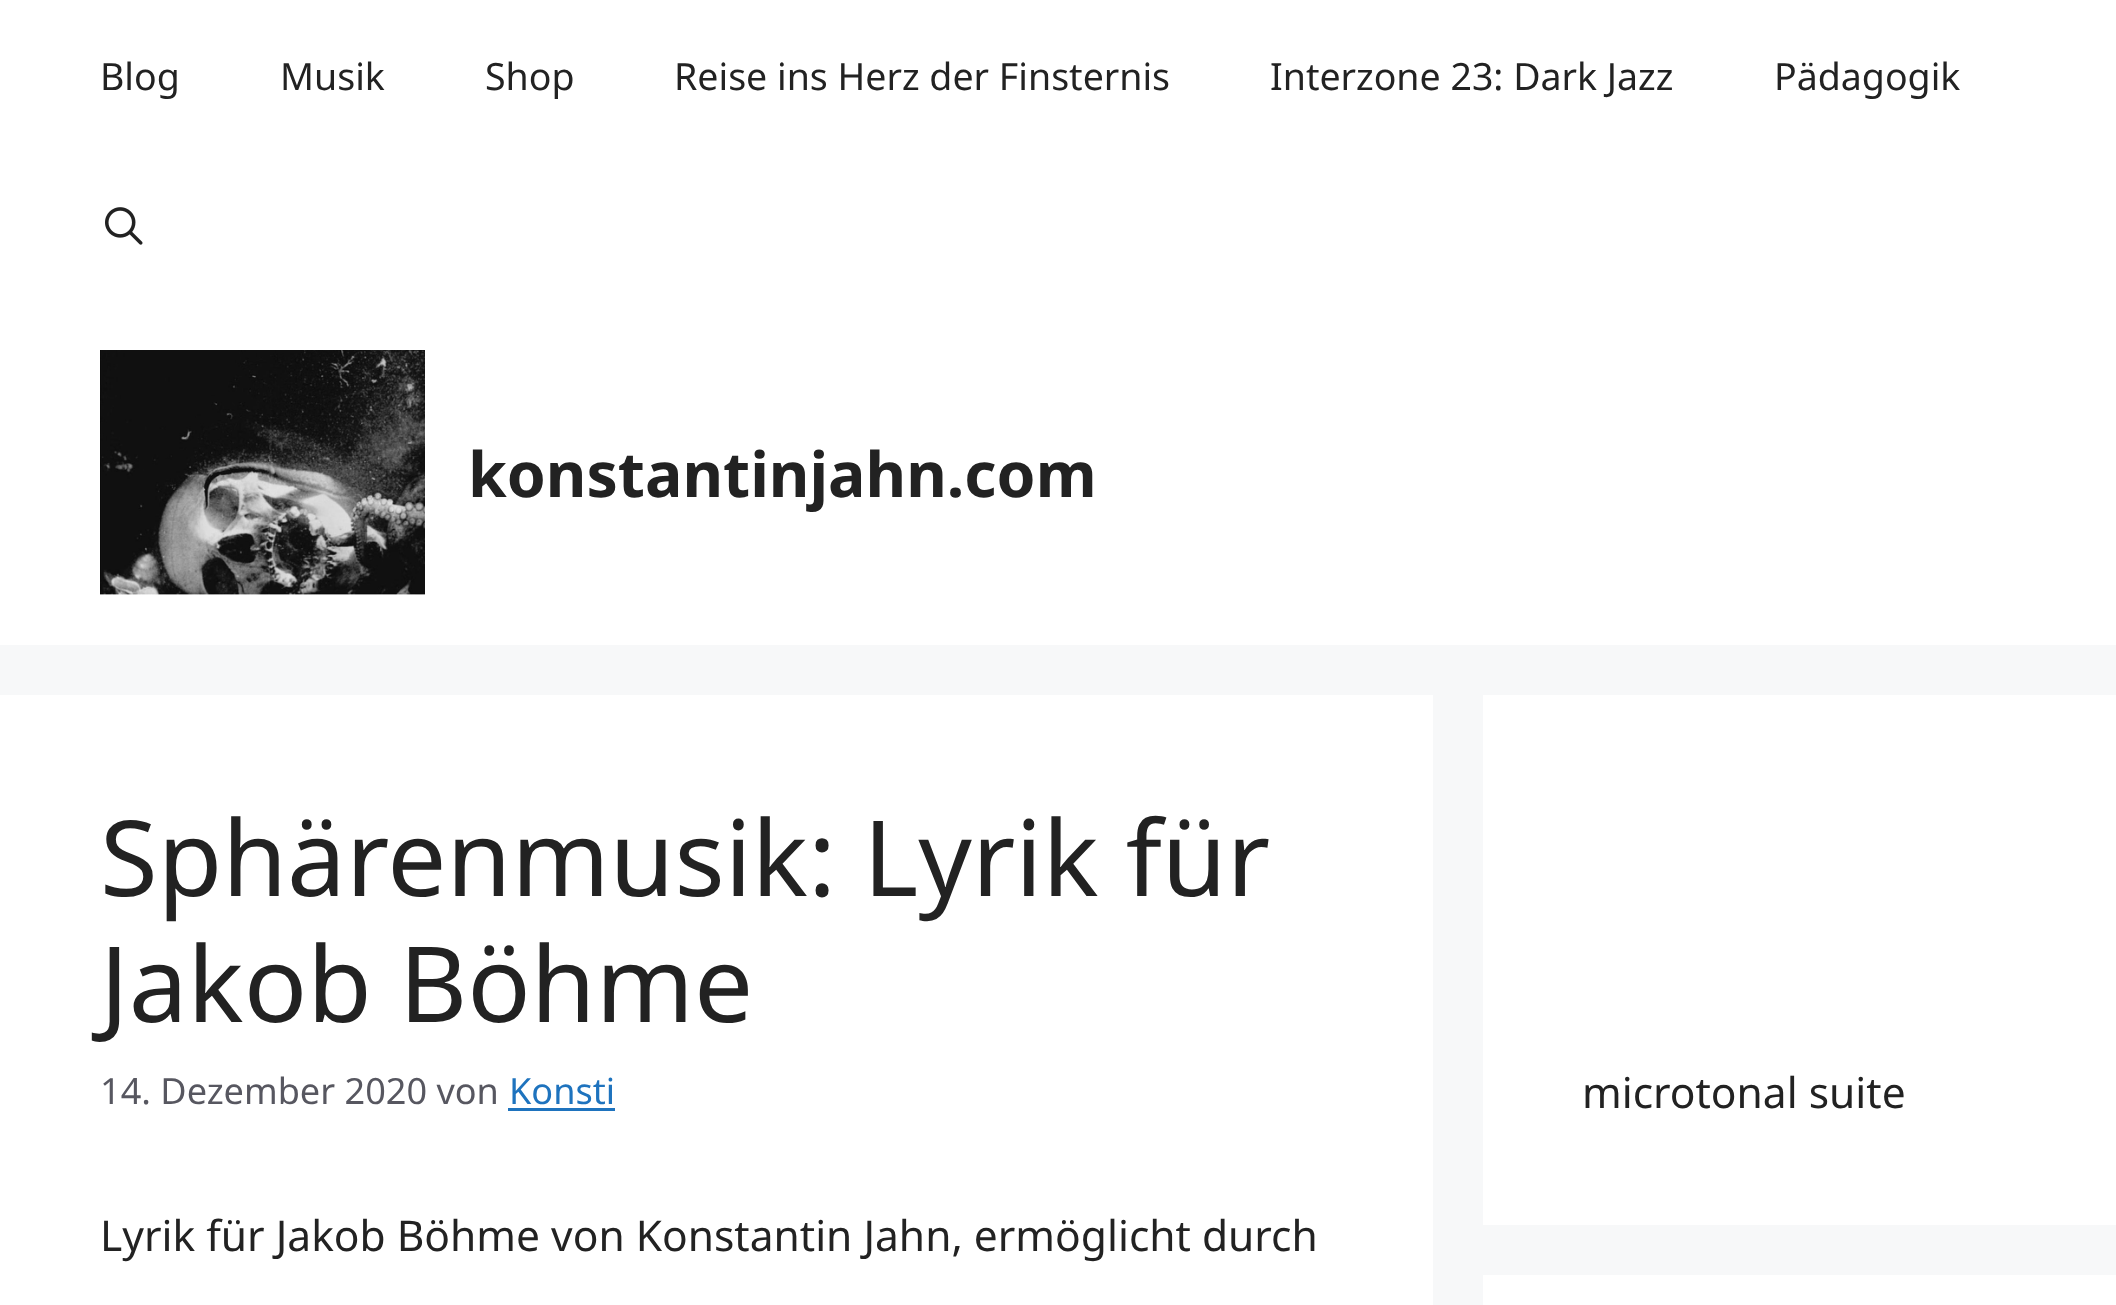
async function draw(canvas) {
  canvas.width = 2116;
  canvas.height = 1305;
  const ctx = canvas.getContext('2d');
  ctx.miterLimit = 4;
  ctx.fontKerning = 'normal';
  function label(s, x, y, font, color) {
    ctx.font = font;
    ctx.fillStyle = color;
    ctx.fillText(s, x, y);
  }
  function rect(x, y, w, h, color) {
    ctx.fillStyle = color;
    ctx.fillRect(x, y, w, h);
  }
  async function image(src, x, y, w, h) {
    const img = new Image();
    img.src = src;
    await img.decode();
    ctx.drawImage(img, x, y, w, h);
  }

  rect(0, 0, 2116, 1305, '#f7f8f9');
  rect(0, 0, 2116, 645, '#fff');
  label('Blog', 100, 90, '37.5px Noto Sans', '#222');
  label('Musik', 280, 90, '37.5px Noto Sans', '#222');
  label('Shop', 485, 90, '37.5px Noto Sans', '#222');
  label('Reise ins Herz der Finsternis', 674, 90, '37.5px Noto Sans', '#222');
  label('Interzone 23: Dark Jazz', 1270, 90, '37.5px Noto Sans', '#222');
  label('Pädagogik', 1774, 90, '37.5px Noto Sans', '#222');
  await image('assets/img1.png', 105, 207, 38, 38);
  await image('assets/img2.png', 100, 350, 325, 245);
  label('konstantinjahn.com', 468, 497, 'bold 62.5px Noto Sans', '#222');
  rect(0, 695, 1433, 610, '#fff');
  label('Sphärenmusik: Lyrik für', 100, 896, '105px Noto Sans', '#222');
  label('Jakob Böhme', 100, 1022, '105px Noto Sans', '#222');
  label('14. Dezember 2020 von', 100, 1104, '36.1px Noto Sans', '#575760');
  label('Konsti', 509, 1104, '36.1px Noto Sans', '#1e73be');
  rect(508, 1108, 107, 3, '#1e73be');
  label('Lyrik für Jakob Böhme von Konstantin Jahn, ermöglicht durch', 100, 1251, '42.5px Noto Sans', '#222');
  rect(1483, 695, 633, 530, '#fff');
  label('microtonal suite', 1582, 1108, '42.5px Noto Sans', '#222');
  rect(1483, 1275, 633, 30, '#fff');
}

draw(document.querySelector('canvas'));
